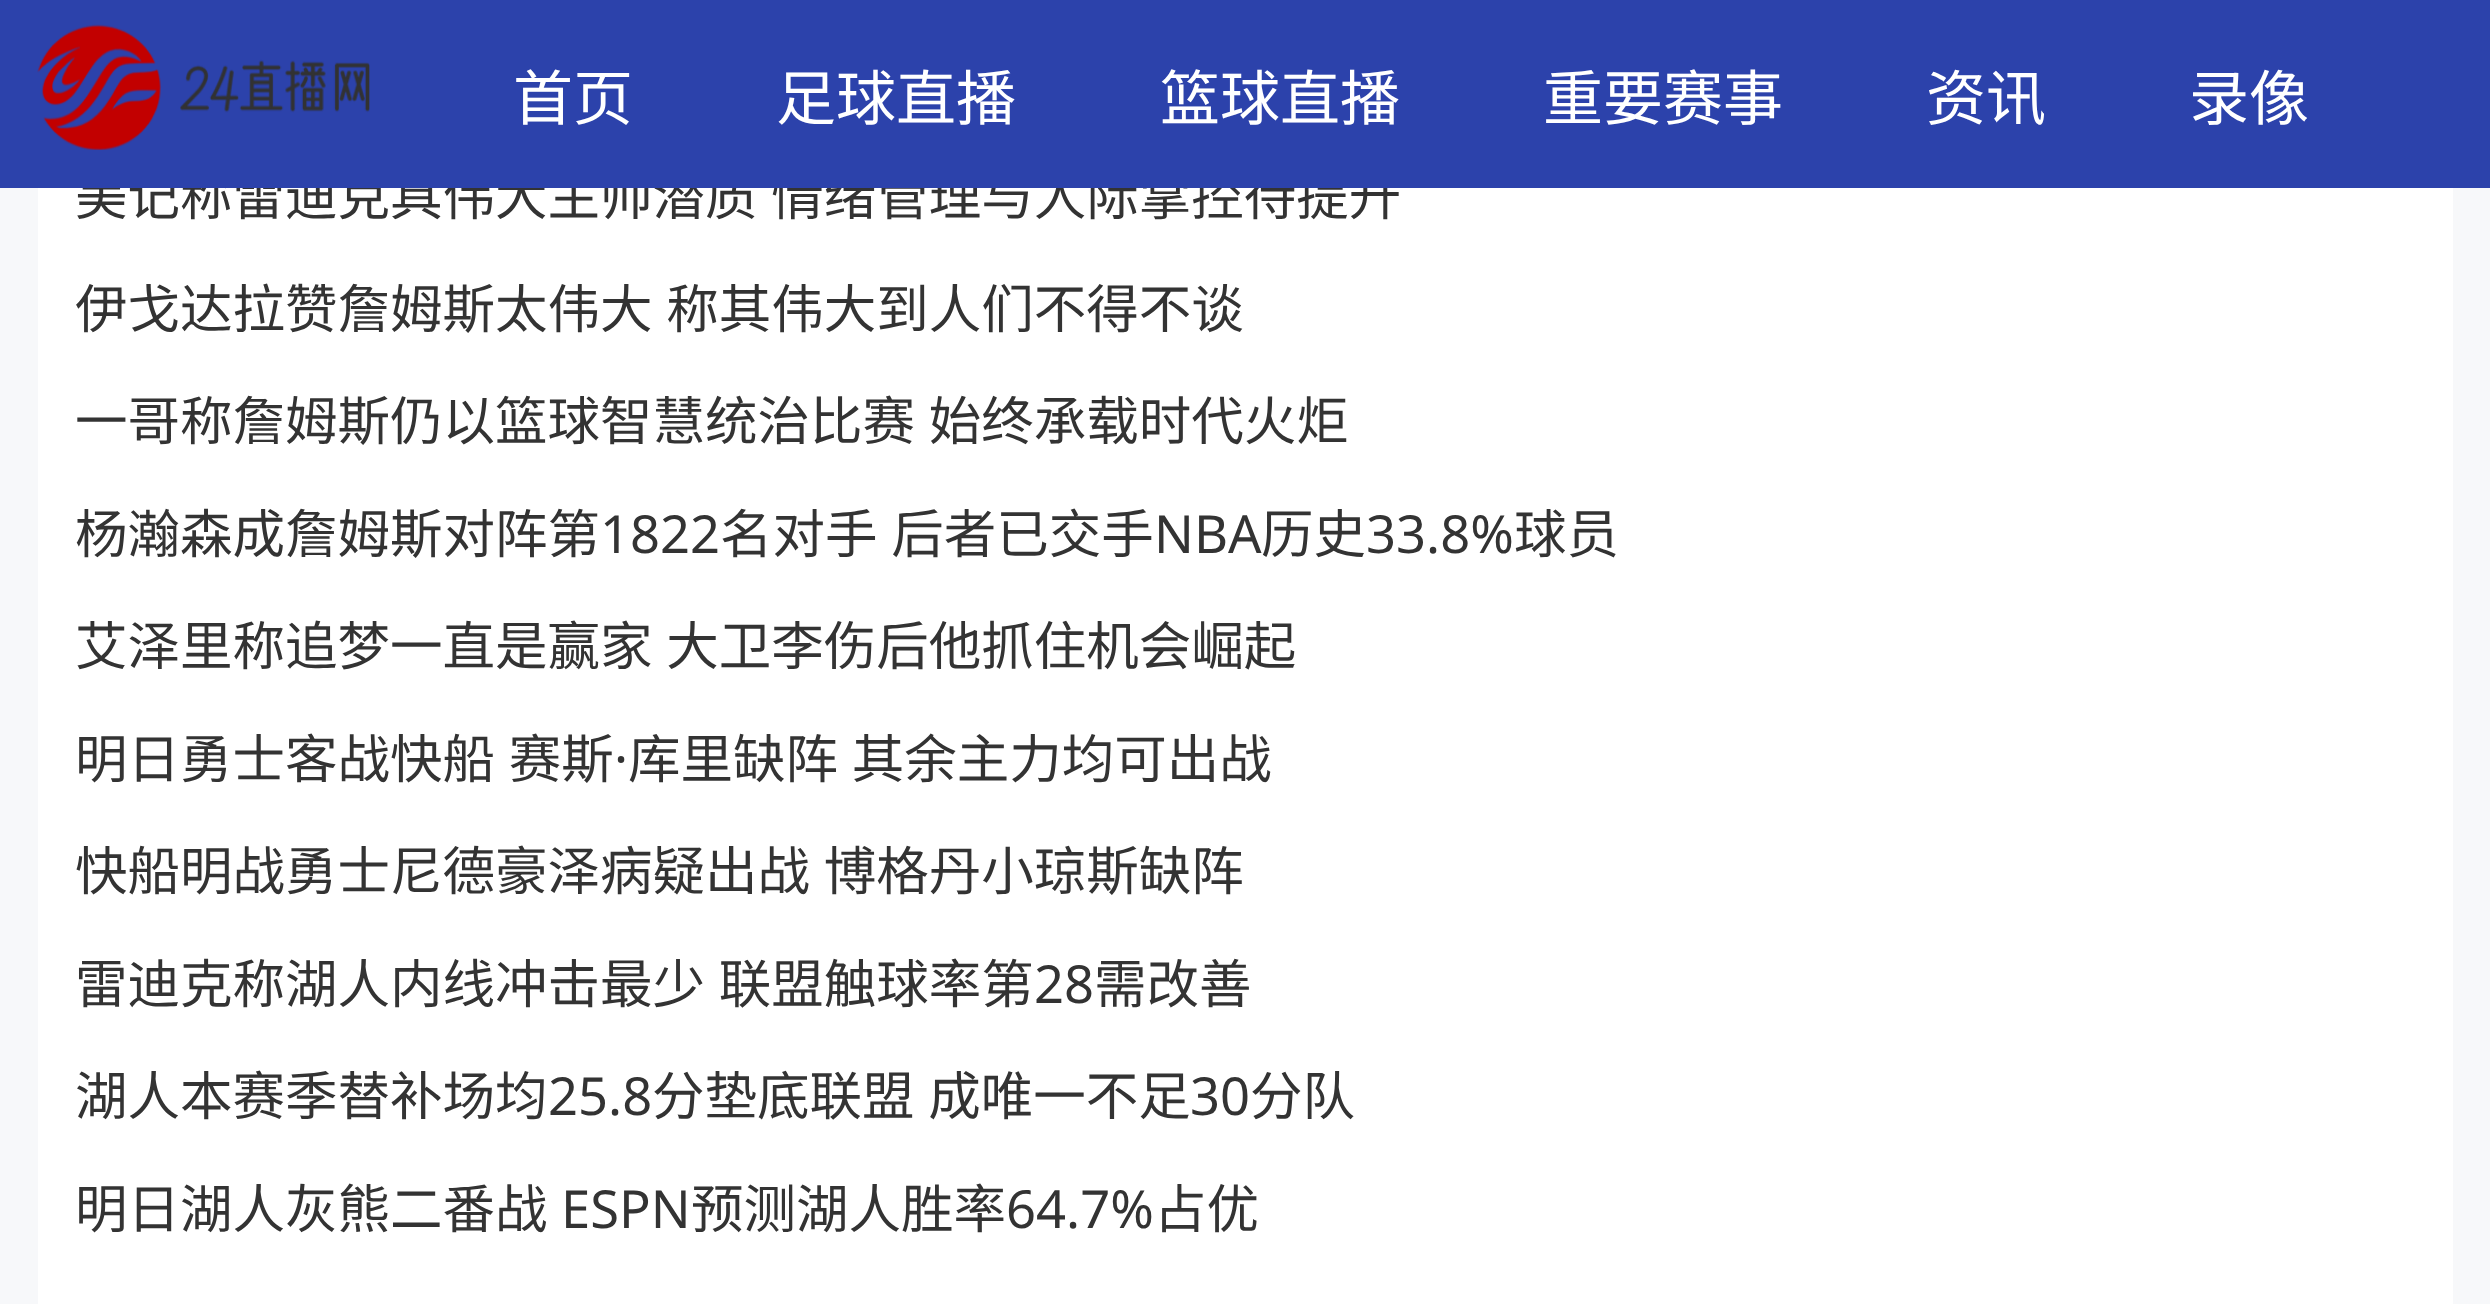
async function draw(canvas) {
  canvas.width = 2490;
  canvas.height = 1304;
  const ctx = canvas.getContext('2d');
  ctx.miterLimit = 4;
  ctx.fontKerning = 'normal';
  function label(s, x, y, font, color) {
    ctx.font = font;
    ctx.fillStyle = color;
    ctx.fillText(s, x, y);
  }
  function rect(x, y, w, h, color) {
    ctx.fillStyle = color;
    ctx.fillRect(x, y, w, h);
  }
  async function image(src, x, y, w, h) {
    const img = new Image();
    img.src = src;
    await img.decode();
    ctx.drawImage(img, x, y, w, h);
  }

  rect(0, 0, 2490, 1304, '#f7f8fa');
  rect(38, 188, 2415, 1116, '#fff');
  ctx.wordSpacing = '2px';
  label('美记称雷迪克具伟大主帅潜质 情绪管理与人际掌控待提升', 75, 215, '52.5px Noto Sans CJK SC', '#333');
  rect(0, 0, 2490, 188, '#2c42ab');
  await image('assets/img1.png', 37, 24, 333, 126);
  ctx.wordSpacing = '0px';
  label('首页', 513, 120, '60px Noto Sans CJK SC', '#fff');
  label('足球直播', 776, 120, '60px Noto Sans CJK SC', '#fff');
  label('篮球直播', 1160, 120, '60px Noto Sans CJK SC', '#fff');
  label('重要赛事', 1543, 120, '60px Noto Sans CJK SC', '#fff');
  label('资讯', 1926, 120, '60px Noto Sans CJK SC', '#fff');
  label('录像', 2189, 120, '60px Noto Sans CJK SC', '#fff');
  ctx.wordSpacing = '2px';
  label('伊戈达拉赞詹姆斯太伟大 称其伟大到人们不得不谈', 75, 328, '52.5px Noto Sans CJK SC', '#333');
  label('一哥称詹姆斯仍以篮球智慧统治比赛 始终承载时代火炬', 75, 440, '52.5px Noto Sans CJK SC', '#333');
  ctx.wordSpacing = '0px';
  label('杨瀚森成詹姆斯对阵第', 75, 553, '52.5px Noto Sans CJK SC', '#333');
  label('1822', 600, 553, '52.5px Noto Sans', '#333');
  ctx.wordSpacing = '2px';
  label('名对手 后者已交手', 720, 553, '52.5px Noto Sans CJK SC', '#333');
  ctx.wordSpacing = '0px';
  label('NBA', 1154, 553, '52.5px Noto Sans', '#333');
  label('历史', 1261, 553, '52.5px Noto Sans CJK SC', '#333');
  label('33.8%', 1366, 553, '52.5px Noto Sans', '#333');
  label('球员', 1514, 553, '52.5px Noto Sans CJK SC', '#333');
  ctx.wordSpacing = '2px';
  label('艾泽里称追梦一直是赢家 大卫李伤后他抓住机会崛起', 75, 665, '52.5px Noto Sans CJK SC', '#333');
  label('明日勇士客战快船 赛斯', 75, 778, '52.5px Noto Sans CJK SC', '#333');
  ctx.wordSpacing = '0px';
  label('·', 614, 778, '52.5px Noto Sans', '#333');
  ctx.wordSpacing = '2px';
  label('库里缺阵 其余主力均可出战', 628, 778, '52.5px Noto Sans CJK SC', '#333');
  label('快船明战勇士尼德豪泽病疑出战 博格丹小琼斯缺阵', 75, 890, '52.5px Noto Sans CJK SC', '#333');
  label('雷迪克称湖人内线冲击最少 联盟触球率第', 75, 1003, '52.5px Noto Sans CJK SC', '#333');
  ctx.wordSpacing = '0px';
  label('28', 1034, 1003, '52.5px Noto Sans', '#333');
  label('需改善', 1094, 1003, '52.5px Noto Sans CJK SC', '#333');
  label('湖人本赛季替补场均', 75, 1115, '52.5px Noto Sans CJK SC', '#333');
  label('25.8', 548, 1115, '52.5px Noto Sans', '#333');
  ctx.wordSpacing = '2px';
  label('分垫底联盟 成唯一不足', 652, 1115, '52.5px Noto Sans CJK SC', '#333');
  ctx.wordSpacing = '0px';
  label('30', 1190, 1115, '52.5px Noto Sans', '#333');
  label('分队', 1250, 1115, '52.5px Noto Sans CJK SC', '#333');
  label('明日湖人灰熊二番战', 75, 1228, '52.5px Noto Sans CJK SC', '#333');
  label('ESPN', 561, 1228, '52.5px Noto Sans', '#333');
  label('预测湖人胜率', 691, 1228, '52.5px Noto Sans CJK SC', '#333');
  label('64.7%', 1006, 1228, '52.5px Noto Sans', '#333');
  label('占优', 1154, 1228, '52.5px Noto Sans CJK SC', '#333');
}

draw(document.querySelector('canvas'));
